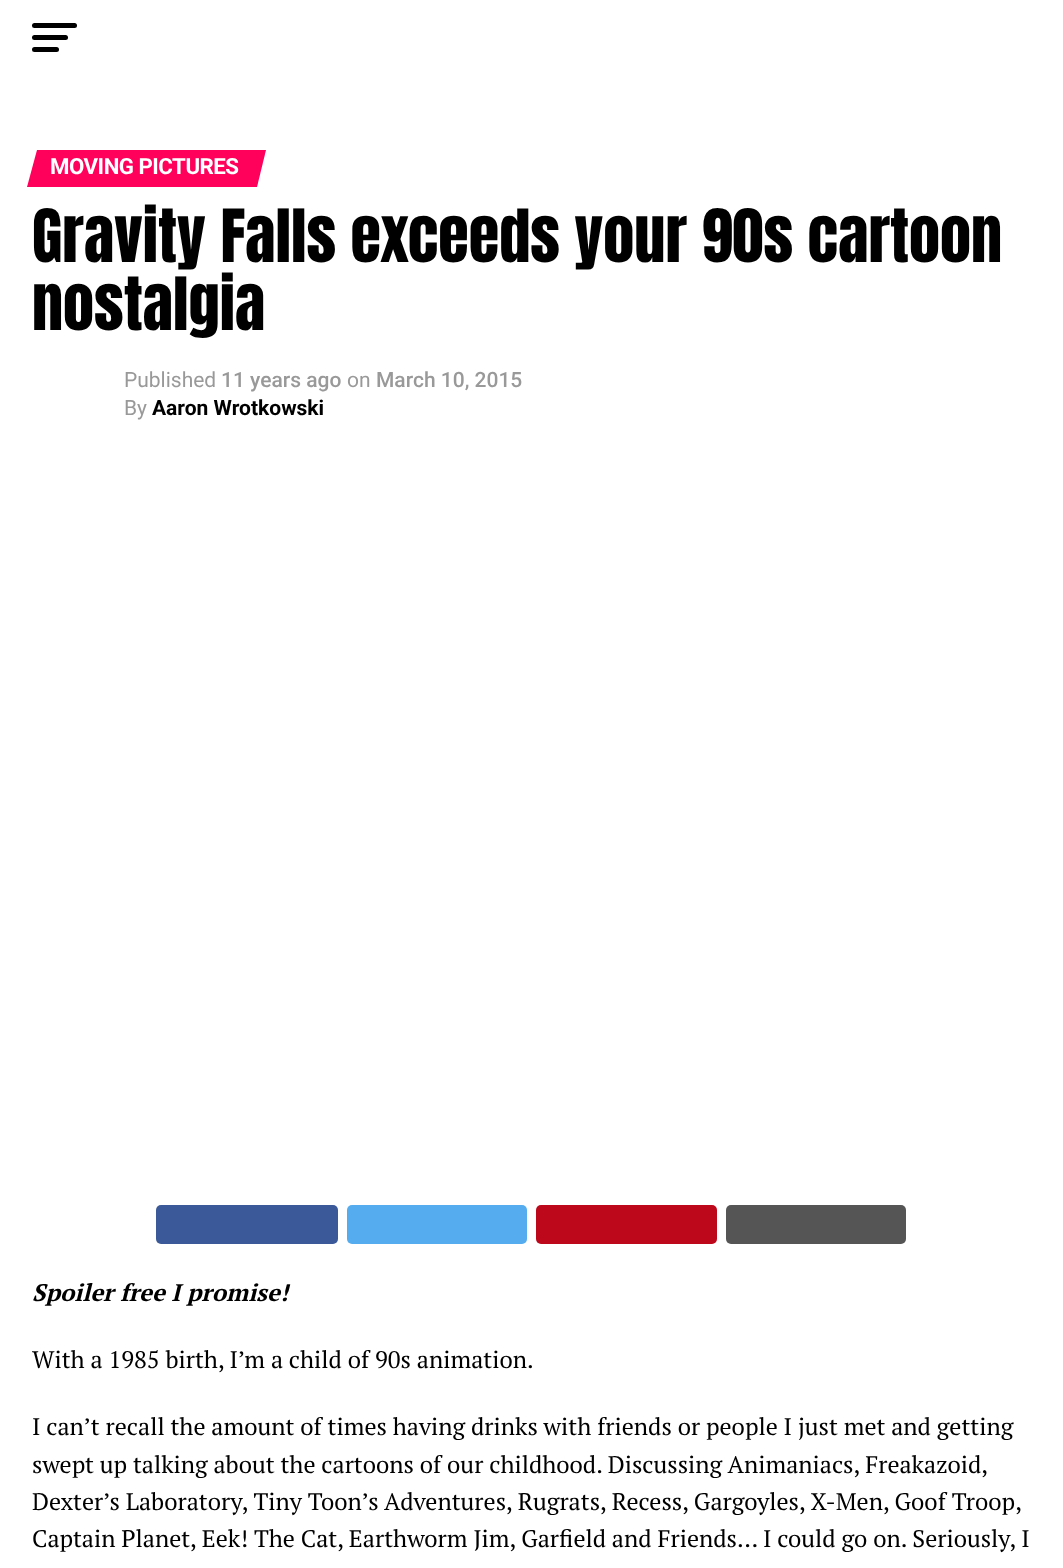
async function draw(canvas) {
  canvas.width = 1063;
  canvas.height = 1568;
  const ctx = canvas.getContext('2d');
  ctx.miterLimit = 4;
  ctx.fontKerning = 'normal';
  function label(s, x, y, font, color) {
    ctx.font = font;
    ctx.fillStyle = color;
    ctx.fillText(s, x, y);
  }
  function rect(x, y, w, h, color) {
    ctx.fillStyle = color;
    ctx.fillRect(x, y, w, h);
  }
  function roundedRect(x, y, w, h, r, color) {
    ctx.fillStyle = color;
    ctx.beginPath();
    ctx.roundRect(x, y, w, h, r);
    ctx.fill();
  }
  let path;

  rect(0, 0, 1063, 1568, '#fff');
  roundedRect(32, 23, 45, 5, 2.5, '#000');
  roundedRect(32, 35, 36, 5, 2.5, '#000');
  roundedRect(32, 47, 27, 5, 2.5, '#000');
  ctx.fillStyle = '#ff005b';
  path = new Path2D('M37 150H266L257 187H27Z');
  ctx.fill(path);
  ctx.letterSpacing = '-0.5px';
  label('MOVING PICTURES', 50, 174, 'bold 22.25px Roboto', '#fff');
  ctx.letterSpacing = '0px';
  label('Gravity Falls exceeds your 90s cartoon', 32, 262, '62.4px Anton', '#000');
  label('nostalgia', 32, 330, '62.4px Anton', '#000');
  label('Published', 124, 387, '21px Roboto', '#999');
  label('11 years ago', 221, 387, '500 21px Roboto', '#999');
  label('on', 347, 387, '21px Roboto', '#999');
  label('March 10, 2015', 376, 387, '500 21px Roboto', '#999');
  label('By', 124, 415, '21px Roboto', '#999');
  label('Aaron Wrotkowski', 152, 415, 'bold 21px Roboto', '#000');
  roundedRect(156, 1205, 182, 39, 5, '#3b5998');
  roundedRect(347, 1205, 180, 39, 5, '#55acee');
  roundedRect(536, 1205, 181, 39, 5, '#bd081c');
  roundedRect(726, 1205, 180, 39, 5, '#555');
  label('Spoiler free I promise!', 32, 1301, 'italic bold 24px PT Serif', '#000');
  label('With a 1985 birth, I’m a child of 90s animation.', 32, 1368, '24px PT Serif', '#000');
  label('I can’t recall the amount of times having drinks with friends or people I just met and getting', 32, 1435, '24px PT Serif', '#000');
  label('swept up talking about the cartoons of our childhood. Discussing Animaniacs, Freakazoid,', 32, 1473, '24px PT Serif', '#000');
  label('Dexter’s Laboratory, Tiny Toon’s Adventures, Rugrats, Recess, Gargoyles, X-Men, Goof Troop,', 32, 1510, '24px PT Serif', '#000');
  label('Captain Planet, Eek! The Cat, Earthworm Jim, Garfield and Friends… I could go on. Seriously, I', 32, 1547, '24px PT Serif', '#000');
}

draw(document.querySelector('canvas'));
